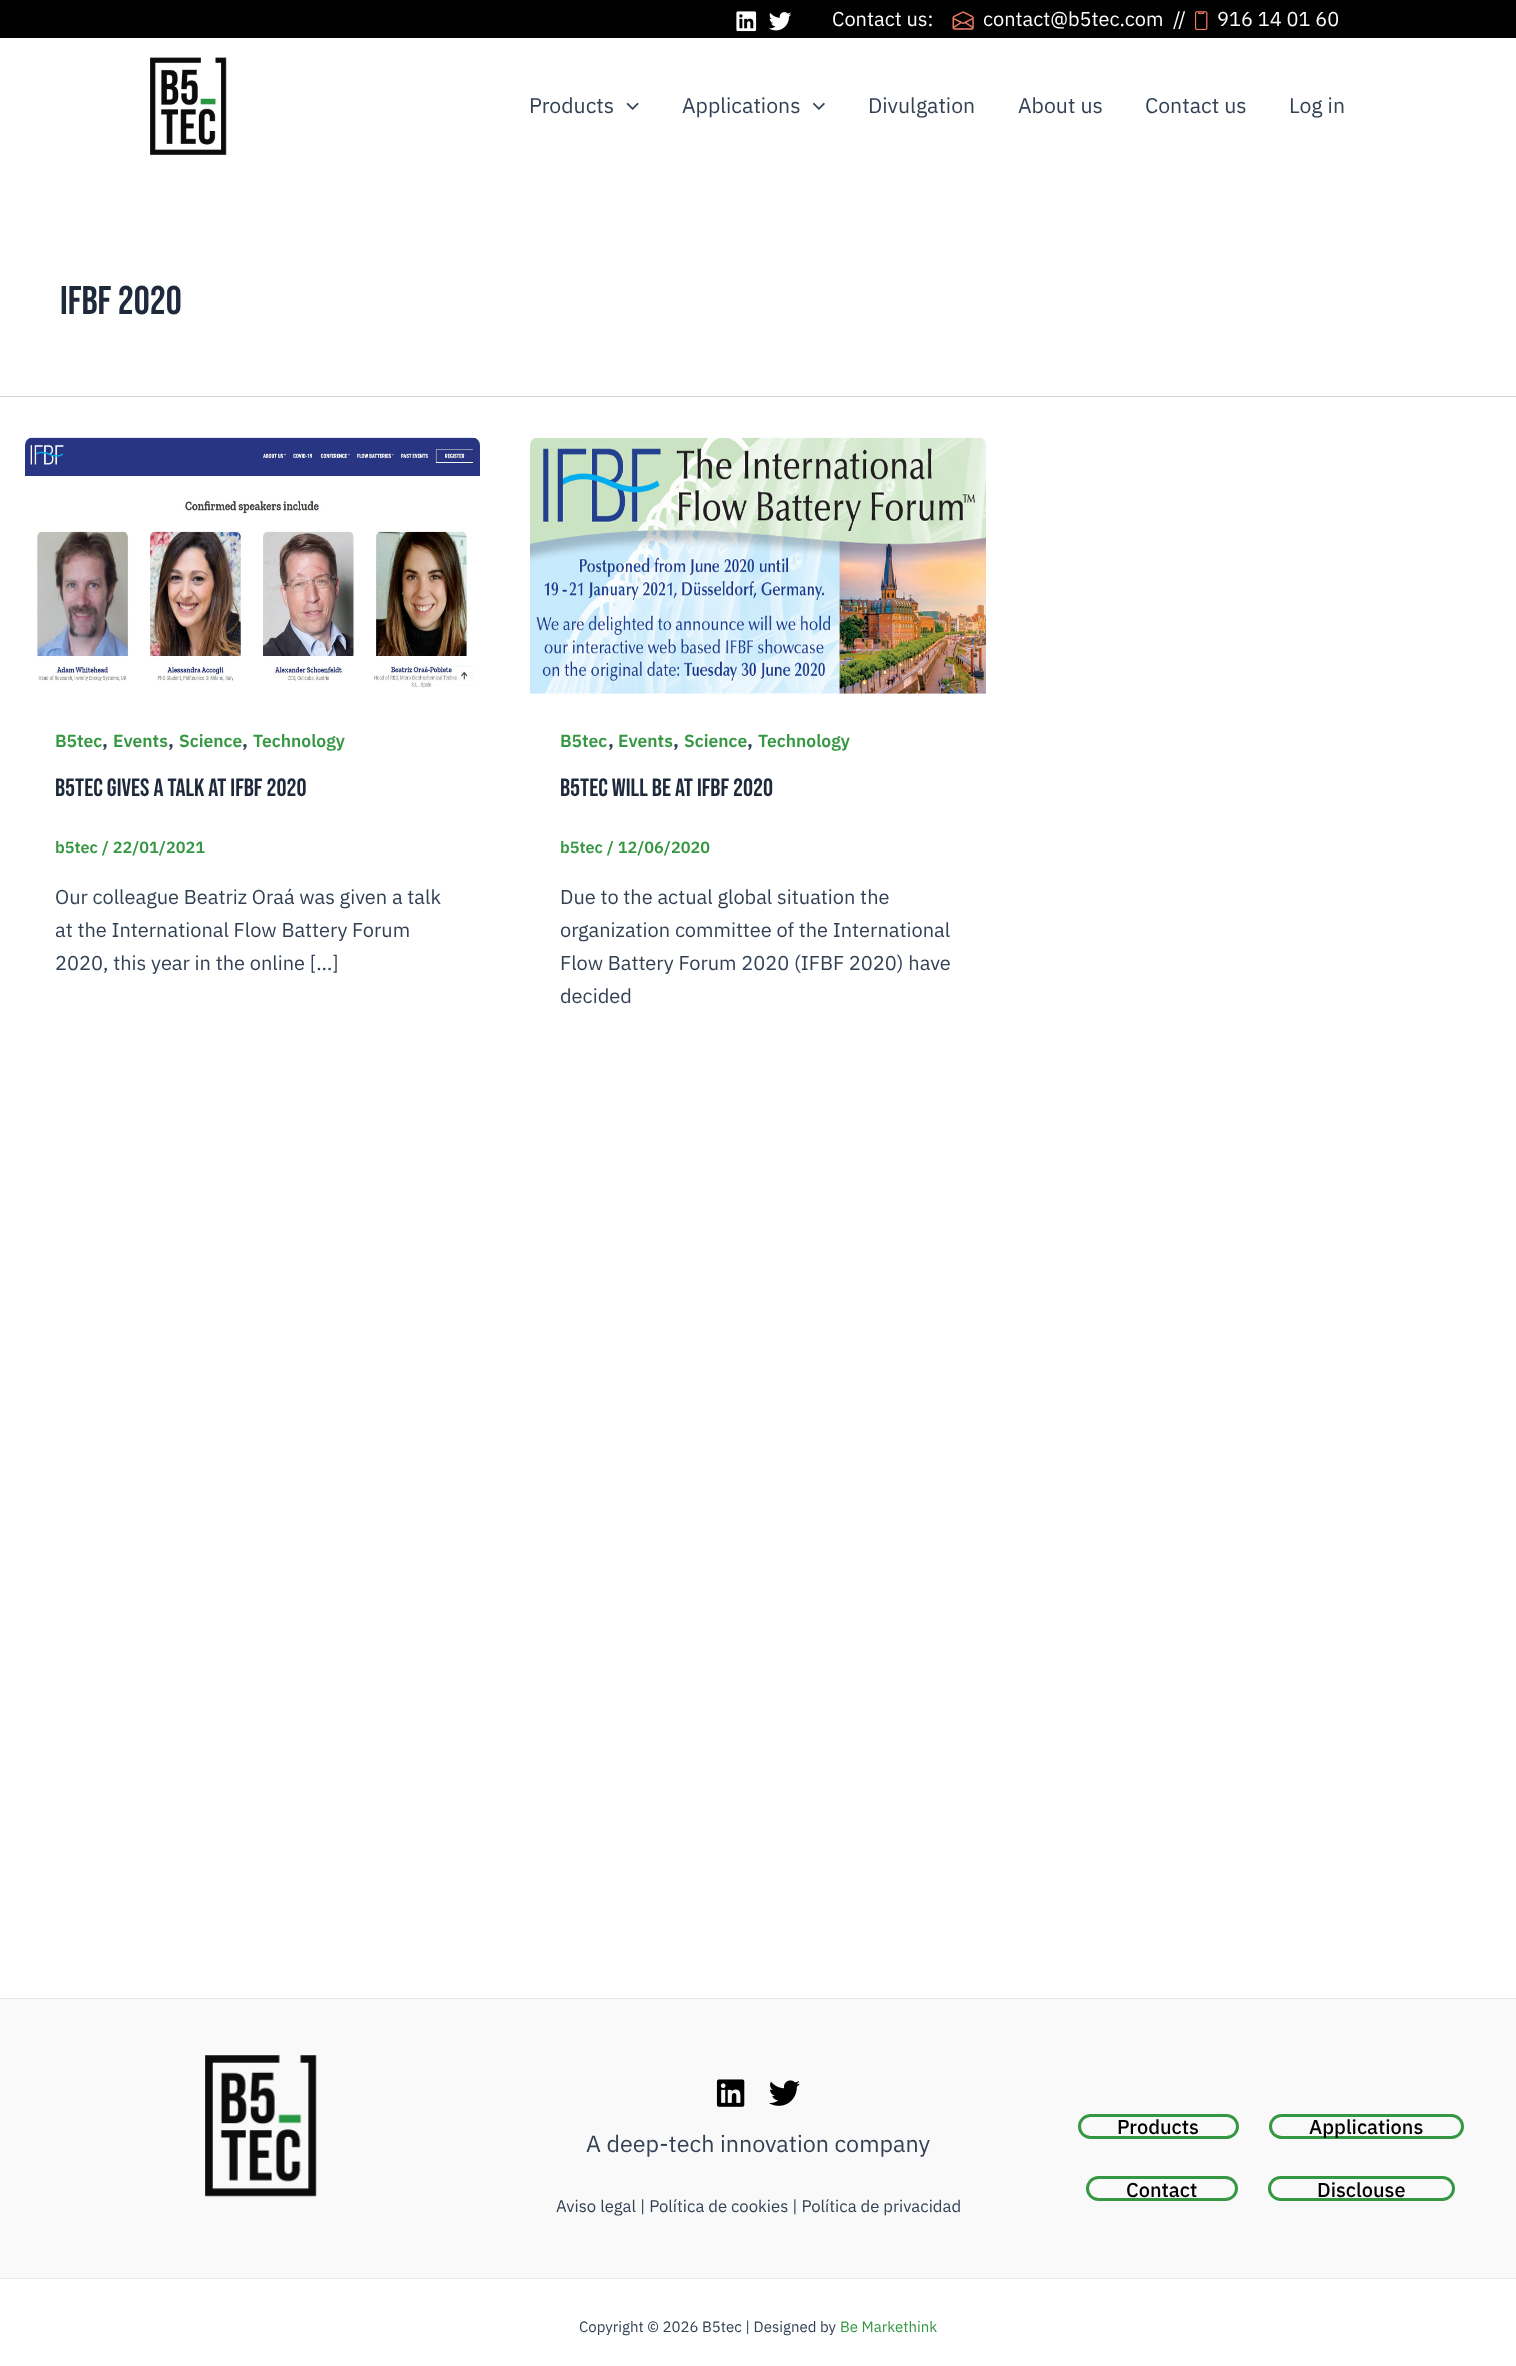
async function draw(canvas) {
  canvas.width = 1516;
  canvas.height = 2366;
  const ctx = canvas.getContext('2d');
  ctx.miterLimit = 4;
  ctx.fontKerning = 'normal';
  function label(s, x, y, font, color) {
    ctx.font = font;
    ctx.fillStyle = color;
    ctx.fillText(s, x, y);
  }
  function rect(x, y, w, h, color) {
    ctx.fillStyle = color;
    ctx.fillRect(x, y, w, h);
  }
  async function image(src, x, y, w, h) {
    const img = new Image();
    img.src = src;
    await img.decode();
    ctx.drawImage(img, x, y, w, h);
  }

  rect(0, 0, 1516, 2366, '#fff');
  rect(0, 0, 1516, 38, '#010101');
  await image('assets/img1.png', 736, 11, 21, 21);
  await image('assets/img2.png', 769, 12, 22, 19);
  label('Contact us:', 832, 26, '20px IBM Plex Sans', '#fff');
  await image('assets/img3.png', 952, 11, 22, 19);
  label('contact@b5tec.com', 983, 26, '20px IBM Plex Sans', '#fff');
  label('//', 1173, 26, '20px IBM Plex Sans', '#fff');
  await image('assets/img4.png', 1195, 11, 13, 19);
  label('916 14 01 60', 1217, 26, '20px IBM Plex Sans', '#fff');
  await image('assets/img5.png', 150, 57, 77, 98);
  label('Products', 529, 113, '21.25px IBM Plex Sans', '#334155');
  await image('assets/img6.png', 626, 102, 13, 8);
  label('Applications', 682, 113, '21.25px IBM Plex Sans', '#334155');
  await image('assets/img7.png', 813, 102, 12, 8);
  label('Divulgation', 868, 113, '21.25px IBM Plex Sans', '#334155');
  label('About us', 1018, 113, '21.25px IBM Plex Sans', '#334155');
  label('Contact us', 1145, 113, '21.25px IBM Plex Sans', '#334155');
  label('Log in', 1289, 113, '21.25px IBM Plex Sans', '#334155');
  rect(0, 396, 1516, 1, '#d1d5db');
  label('IFBF 2020', 60, 314, '40px Bebas Neue', '#1e293b');
  await image('assets/img8.png', 25, 437, 455, 251);
  label('B5tec', 55, 747, '600 17.5px IBM Plex Sans', '#359742');
  label(',', 102, 747, '600 20px IBM Plex Sans', '#334155');
  label('Events', 113, 747, '600 17.5px IBM Plex Sans', '#359742');
  label(',', 168, 747, '600 20px IBM Plex Sans', '#334155');
  label('Science', 179, 747, '600 17.5px IBM Plex Sans', '#359742');
  label(',', 242, 747, '600 20px IBM Plex Sans', '#334155');
  label('Technology', 253, 747, '600 17.5px IBM Plex Sans', '#359742');
  label('B5tec gives a talk at IFBF 2020', 55, 796, '25px Bebas Neue', '#1e293b');
  label('b5tec / 22/01/2021', 55, 853, '600 16.25px IBM Plex Sans', '#359742');
  label('Our colleague Beatriz Oraá was given a talk', 55, 904, '20px IBM Plex Sans', '#334155');
  label('at the International Flow Battery Forum', 55, 937, '20px IBM Plex Sans', '#334155');
  label('2020, this year in the online […]', 55, 970, '20px IBM Plex Sans', '#334155');
  await image('assets/img9.png', 530, 437, 456, 257);
  label('B5tec', 560, 747, '600 17.5px IBM Plex Sans', '#359742');
  label(',', 608, 747, '600 20px IBM Plex Sans', '#334155');
  label('Events', 618, 747, '600 17.5px IBM Plex Sans', '#359742');
  label(',', 673, 747, '600 20px IBM Plex Sans', '#334155');
  label('Science', 684, 747, '600 17.5px IBM Plex Sans', '#359742');
  label(',', 747, 747, '600 20px IBM Plex Sans', '#334155');
  label('Technology', 758, 747, '600 17.5px IBM Plex Sans', '#359742');
  label('B5tec will be at IFBF 2020', 560, 796, '25px Bebas Neue', '#1e293b');
  label('b5tec / 12/06/2020', 560, 853, '600 16.25px IBM Plex Sans', '#359742');
  label('Due to the actual global situation the', 560, 904, '20px IBM Plex Sans', '#334155');
  label('organization committee of the International', 560, 937, '20px IBM Plex Sans', '#334155');
  label('Flow Battery Forum 2020 (IFBF 2020) have', 560, 970, '20px IBM Plex Sans', '#334155');
  label('decided', 560, 1003, '20px IBM Plex Sans', '#334155');
  rect(0, 1999, 1516, 279, '#f9f9f9');
  rect(0, 1998, 1516, 1, '#e6e6e6');
  await image('assets/img10.png', 205, 2055, 112, 142);
  await image('assets/img11.png', 716, 2079, 29, 28);
  await image('assets/img12.png', 769, 2080, 31, 26);
  label('A deep-tech innovation company', 586, 2152, '23.3px IBM Plex Sans', '#334155');
  label('Aviso legal | Política de cookies | Política de privacidad', 556, 2212, '16.7px IBM Plex Sans', '#334155');
  ctx.beginPath();
  ctx.roundRect(1079.5, 2115.5, 158, 22, 11);
  ctx.strokeStyle = '#359742';
  ctx.lineWidth = 3;
  ctx.stroke();
  label('Products', 1117, 2134, '500 20px IBM Plex Sans', '#010101');
  ctx.beginPath();
  ctx.roundRect(1270.5, 2115.5, 192, 22, 11);
  ctx.stroke();
  label('Applications', 1309, 2134, '500 20px IBM Plex Sans', '#010101');
  ctx.beginPath();
  ctx.roundRect(1087.5, 2177.5, 149, 22, 11);
  ctx.stroke();
  label('Contact', 1126, 2197, '500 20px IBM Plex Sans', '#010101');
  ctx.beginPath();
  ctx.roundRect(1269.5, 2177.5, 184, 22, 11);
  ctx.stroke();
  label('Disclouse', 1317, 2197, '500 20px IBM Plex Sans', '#010101');
  rect(0, 2278, 1516, 1, '#eaeaea');
  label('Copyright © 2026 B5tec | Designed by', 579, 2332, '15px IBM Plex Sans', '#334155');
  label('Be Markethink', 840, 2332, '15px IBM Plex Sans', '#359742');
}

draw(document.querySelector('canvas'));
